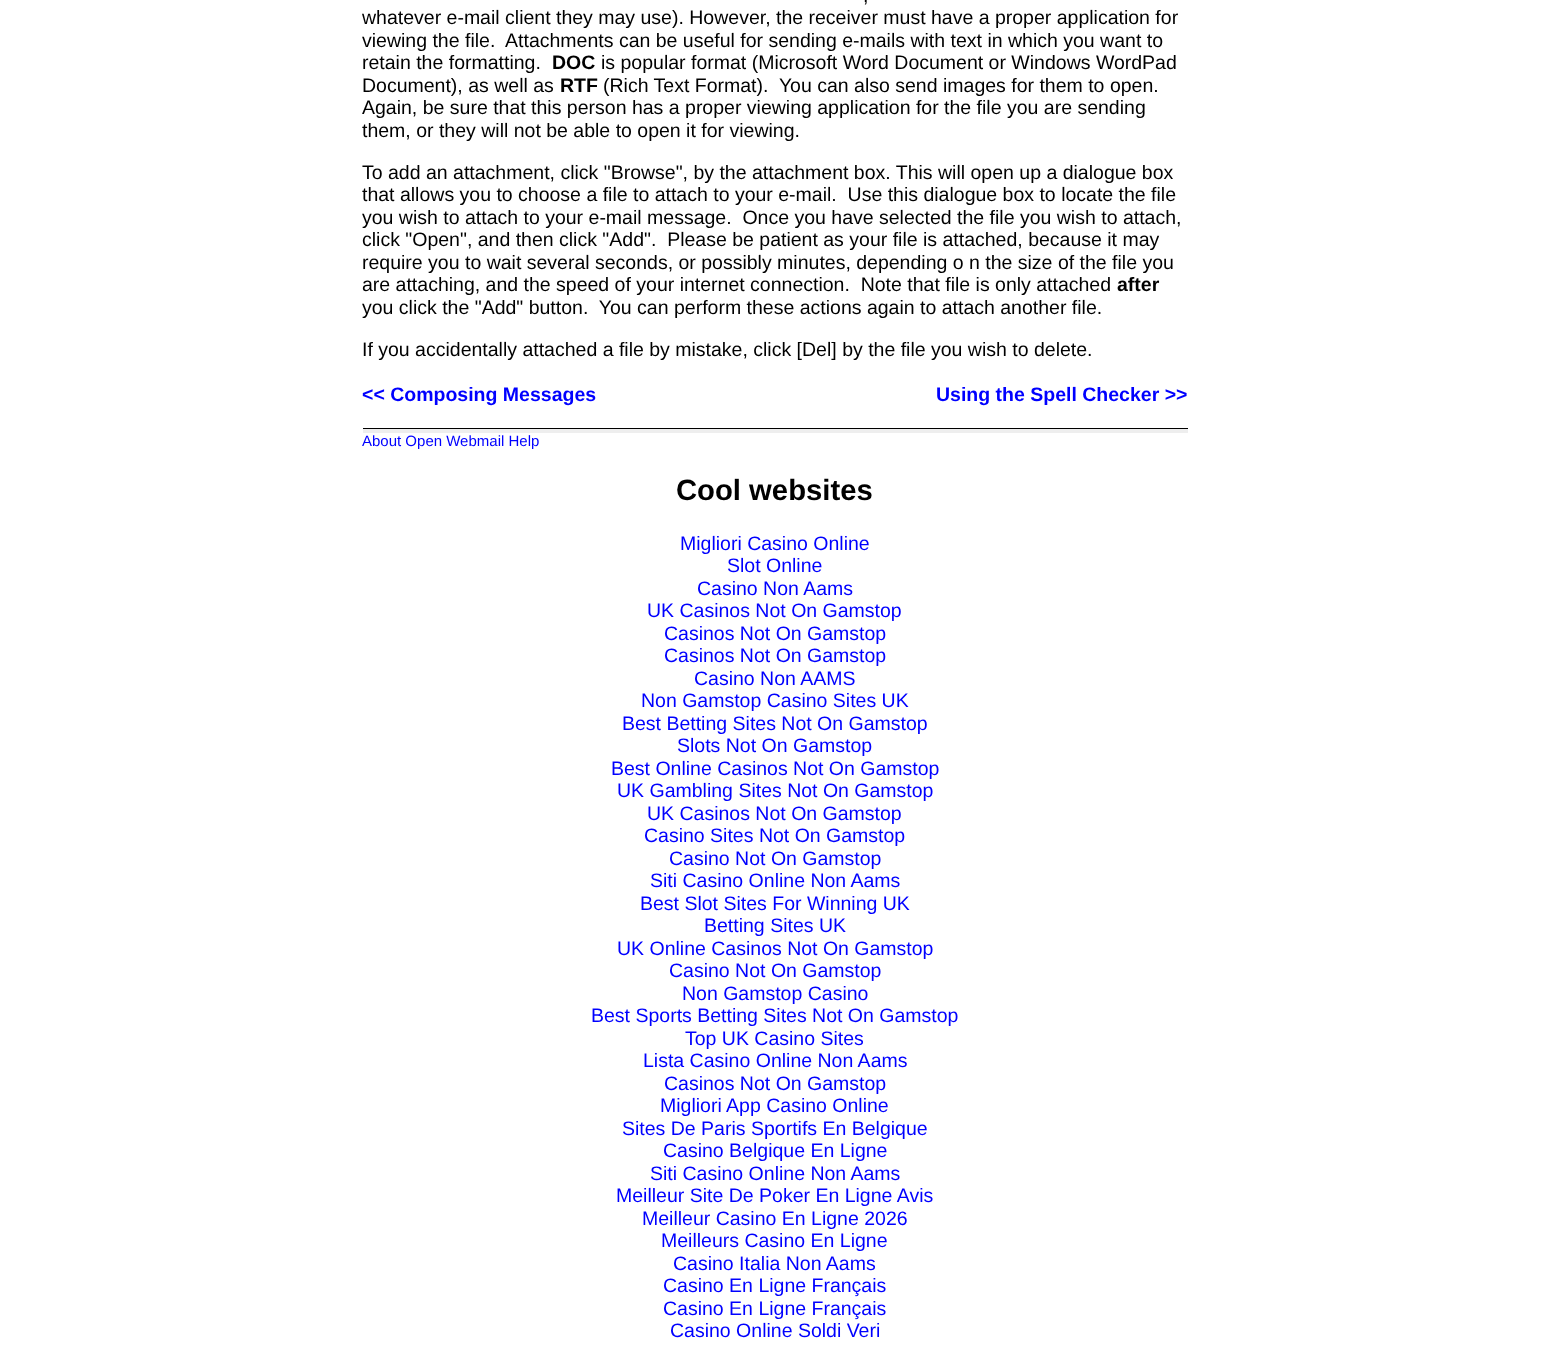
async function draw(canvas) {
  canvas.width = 1549;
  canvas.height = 1360;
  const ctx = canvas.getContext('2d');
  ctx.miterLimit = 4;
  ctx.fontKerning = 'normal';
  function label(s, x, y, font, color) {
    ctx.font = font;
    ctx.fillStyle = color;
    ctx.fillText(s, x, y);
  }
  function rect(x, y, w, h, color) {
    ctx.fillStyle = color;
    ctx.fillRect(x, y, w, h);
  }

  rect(0, 0, 1549, 1360, '#fff');
  label(',', 863, 2, '19.5px Liberation Sans', '#000');
  label('whatever e-mail client they may use). However, the receiver must have a proper application for', 362, 24, '19.5px Liberation Sans', '#000');
  label('viewing the file.  Attachments can be useful for sending e-mails with text in which you want to', 362, 47, '19.5px Liberation Sans', '#000');
  label('retain the formatting.', 362, 69, '19.5px Liberation Sans', '#000');
  label('DOC', 552, 69, 'bold 19.5px Liberation Sans', '#000');
  label('is popular format (Microsoft Word Document or Windows WordPad', 601, 69, '19.5px Liberation Sans', '#000');
  label('Document), as well as', 362, 92, '19.5px Liberation Sans', '#000');
  label('RTF', 560, 92, 'bold 19.5px Liberation Sans', '#000');
  label('(Rich Text Format).  You can also send images for them to open.', 603, 92, '19.5px Liberation Sans', '#000');
  label('Again, be sure that this person has a proper viewing application for the file you are sending', 362, 114, '19.5px Liberation Sans', '#000');
  label('them, or they will not be able to open it for viewing.', 362, 137, '19.5px Liberation Sans', '#000');
  label('To add an attachment, click "Browse", by the attachment box. This will open up a dialogue box', 362, 179, '19.5px Liberation Sans', '#000');
  label('that allows you to choose a file to attach to your e-mail.  Use this dialogue box to locate the file', 362, 201, '19.5px Liberation Sans', '#000');
  label('you wish to attach to your e-mail message.  Once you have selected the file you wish to attach,', 362, 224, '19.5px Liberation Sans', '#000');
  label('click "Open", and then click "Add".  Please be patient as your file is attached, because it may', 362, 246, '19.5px Liberation Sans', '#000');
  label('require you to wait several seconds, or possibly minutes, depending o n the size of the file you', 362, 269, '19.5px Liberation Sans', '#000');
  label('are attaching, and the speed of your internet connection.  Note that file is only attached', 362, 291, '19.5px Liberation Sans', '#000');
  label('after', 1117, 291, 'bold 19.5px Liberation Sans', '#000');
  label('you click the "Add" button.  You can perform these actions again to attach another file.', 362, 314, '19.5px Liberation Sans', '#000');
  label('If you accidentally attached a file by mistake, click [Del] by the file you wish to delete.', 362, 356, '19.5px Liberation Sans', '#000');
  label('<< Composing Messages', 362, 401, 'bold 19.5px Liberation Sans', '#00f');
  label('Using the Spell Checker >>', 936, 401, 'bold 19.5px Liberation Sans', '#00f');
  rect(363, 428, 825, 1, '#000');
  rect(363, 429, 825, 4, '#eee');
  label('About Open Webmail Help', 362, 446, '15px Liberation Sans', '#00f');
  label('Cool websites', 676, 500, 'bold 29.25px Liberation Sans', '#000');
  label('Migliori Casino Online', 680, 550, '19.5px Liberation Sans', '#00f');
  label('Slot Online', 727, 572, '19.5px Liberation Sans', '#00f');
  label('Casino Non Aams', 697, 595, '19.5px Liberation Sans', '#00f');
  label('UK Casinos Not On Gamstop', 647, 617, '19.5px Liberation Sans', '#00f');
  label('Casinos Not On Gamstop', 664, 640, '19.5px Liberation Sans', '#00f');
  label('Casinos Not On Gamstop', 664, 662, '19.5px Liberation Sans', '#00f');
  label('Casino Non AAMS', 694, 685, '19.5px Liberation Sans', '#00f');
  label('Non Gamstop Casino Sites UK', 641, 707, '19.5px Liberation Sans', '#00f');
  label('Best Betting Sites Not On Gamstop', 622, 730, '19.5px Liberation Sans', '#00f');
  label('Slots Not On Gamstop', 677, 752, '19.5px Liberation Sans', '#00f');
  label('Best Online Casinos Not On Gamstop', 611, 775, '19.5px Liberation Sans', '#00f');
  label('UK Gambling Sites Not On Gamstop', 617, 797, '19.5px Liberation Sans', '#00f');
  label('UK Casinos Not On Gamstop', 647, 820, '19.5px Liberation Sans', '#00f');
  label('Casino Sites Not On Gamstop', 644, 842, '19.5px Liberation Sans', '#00f');
  label('Casino Not On Gamstop', 669, 865, '19.5px Liberation Sans', '#00f');
  label('Siti Casino Online Non Aams', 650, 887, '19.5px Liberation Sans', '#00f');
  label('Best Slot Sites For Winning UK', 640, 910, '19.5px Liberation Sans', '#00f');
  label('Betting Sites UK', 704, 932, '19.5px Liberation Sans', '#00f');
  label('UK Online Casinos Not On Gamstop', 617, 955, '19.5px Liberation Sans', '#00f');
  label('Casino Not On Gamstop', 669, 977, '19.5px Liberation Sans', '#00f');
  label('Non Gamstop Casino', 682, 1000, '19.5px Liberation Sans', '#00f');
  label('Best Sports Betting Sites Not On Gamstop', 591, 1022, '19.5px Liberation Sans', '#00f');
  label('Top UK Casino Sites', 685, 1045, '19.5px Liberation Sans', '#00f');
  label('Lista Casino Online Non Aams', 643, 1067, '19.5px Liberation Sans', '#00f');
  label('Casinos Not On Gamstop', 664, 1090, '19.5px Liberation Sans', '#00f');
  label('Migliori App Casino Online', 660, 1112, '19.5px Liberation Sans', '#00f');
  label('Sites De Paris Sportifs En Belgique', 622, 1135, '19.5px Liberation Sans', '#00f');
  label('Casino Belgique En Ligne', 663, 1157, '19.5px Liberation Sans', '#00f');
  label('Siti Casino Online Non Aams', 650, 1180, '19.5px Liberation Sans', '#00f');
  label('Meilleur Site De Poker En Ligne Avis', 616, 1202, '19.5px Liberation Sans', '#00f');
  label('Meilleur Casino En Ligne 2026', 642, 1225, '19.5px Liberation Sans', '#00f');
  label('Meilleurs Casino En Ligne', 661, 1247, '19.5px Liberation Sans', '#00f');
  label('Casino Italia Non Aams', 673, 1270, '19.5px Liberation Sans', '#00f');
  label('Casino En Ligne Français', 663, 1292, '19.5px Liberation Sans', '#00f');
  label('Casino En Ligne Français', 663, 1315, '19.5px Liberation Sans', '#00f');
  label('Casino Online Soldi Veri', 670, 1337, '19.5px Liberation Sans', '#00f');
}

draw(document.querySelector('canvas'));
